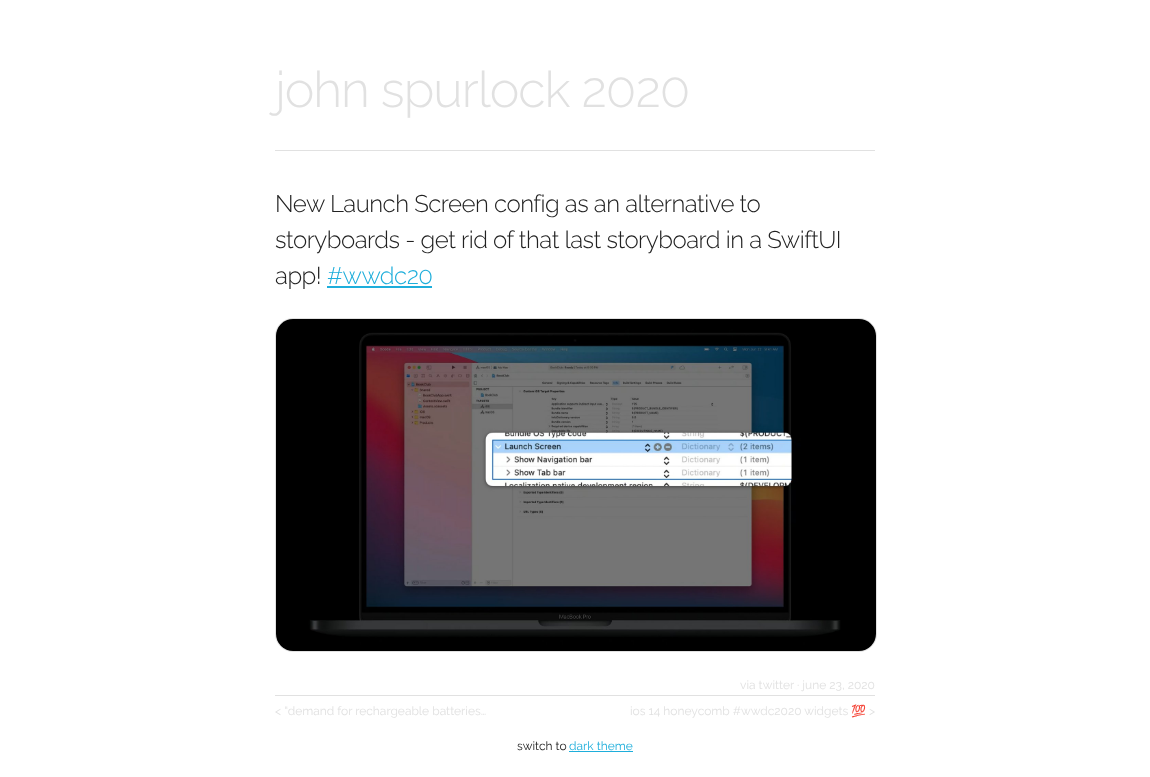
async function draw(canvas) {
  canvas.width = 1150;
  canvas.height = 777;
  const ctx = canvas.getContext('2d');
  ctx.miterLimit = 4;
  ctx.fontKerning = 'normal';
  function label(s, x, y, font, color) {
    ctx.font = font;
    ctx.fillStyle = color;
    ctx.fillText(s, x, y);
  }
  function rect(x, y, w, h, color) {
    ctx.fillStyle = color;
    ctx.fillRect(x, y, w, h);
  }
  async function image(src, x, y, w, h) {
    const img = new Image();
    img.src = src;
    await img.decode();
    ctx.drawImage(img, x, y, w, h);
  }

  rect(0, 0, 1150, 777, '#fff');
  ctx.letterSpacing = '-1px';
  label('john spurlock 2020', 275, 107, '300 50px Raleway', '#e1e1e1');
  rect(275, 150, 600, 1, '#e1e1e1');
  ctx.letterSpacing = '-0.5px';
  label('New Launch Screen config as an alternative to', 275, 212, '300 24px Raleway', '#222');
  label('storyboards - get rid of that last storyboard in a SwiftUI', 275, 248, '300 24px Raleway', '#222');
  label('app!', 275, 284, '300 24px Raleway', '#222');
  label('#wwdc20', 327, 284, '300 24px Raleway', '#1eaedb');
  rect(327, 286, 105, 2, '#1eaedb');
  ctx.beginPath();
  ctx.roundRect(275.5, 318.5, 601, 333, 17.5);
  ctx.strokeStyle = '#e1e1e1';
  ctx.stroke();
  await image('assets/img1.png', 276, 319, 600, 332);
  ctx.letterSpacing = '0px';
  label('via twitter · june 23, 2020', 740, 689, '12px Raleway', '#e1e1e1');
  rect(275, 695, 600, 1, '#e1e1e1');
  label('< “demand for rechargeable batteries…', 275, 715, '12px Raleway', '#e1e1e1');
  label('ios 14 honeycomb #wwdc2020 widgets', 630, 715, '12px Raleway', '#e1e1e1');
  label('💯', 851, 715, '12px Noto Color Emoji', '#e1e1e1');
  label('>', 869, 715, '12px Raleway', '#e1e1e1');
  label('switch to', 517, 750, '12px Raleway', '#222');
  label('dark theme', 569, 750, '12px Raleway', '#1eaedb');
  rect(569, 751, 64, 1, '#1eaedb');
}

draw(document.querySelector('canvas'));
